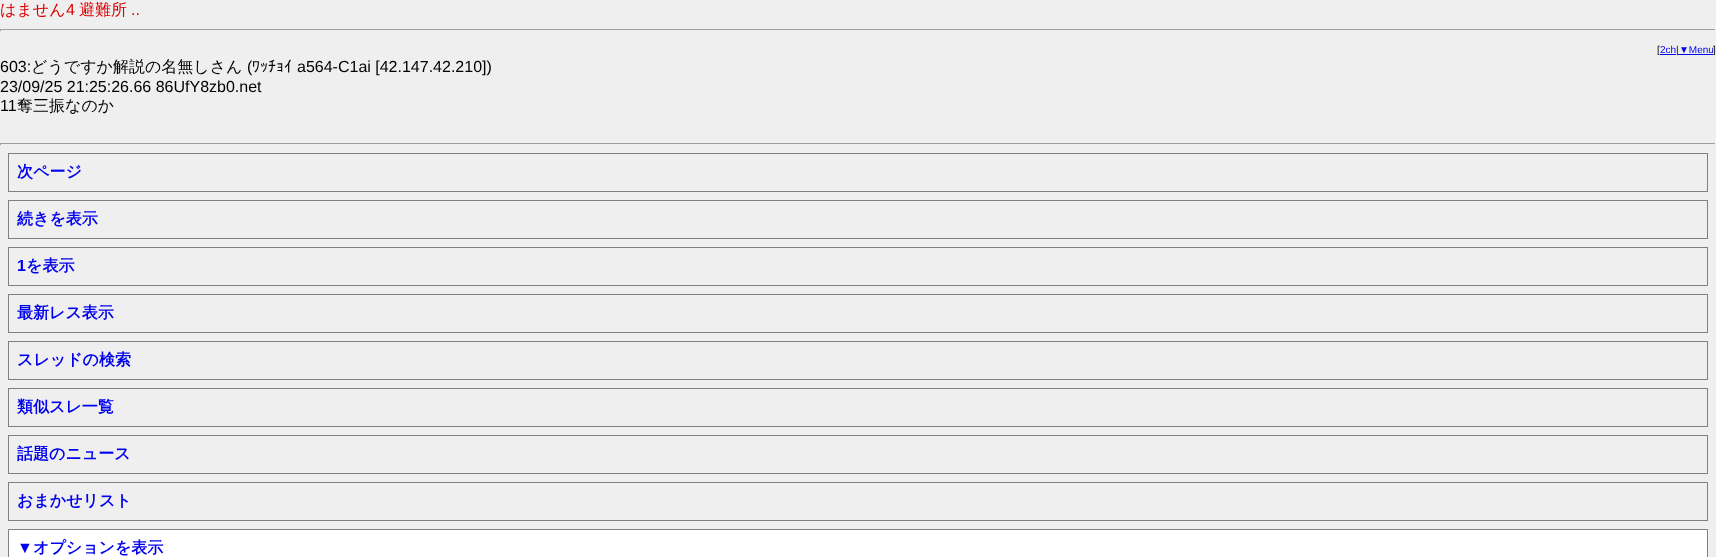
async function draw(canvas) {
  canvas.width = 1716;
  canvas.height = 557;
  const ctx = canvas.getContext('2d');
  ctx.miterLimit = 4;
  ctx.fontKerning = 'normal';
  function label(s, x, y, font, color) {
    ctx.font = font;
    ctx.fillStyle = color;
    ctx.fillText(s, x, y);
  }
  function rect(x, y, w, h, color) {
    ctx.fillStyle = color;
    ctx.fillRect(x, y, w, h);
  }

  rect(0, 0, 1716, 557, '#efefef');
  label('はません', 0, 15, '500 16px WenQuanYi Zen Hei', '#d00');
  label('4', 66, 15, '16px Liberation Sans', '#d00');
  label('避難所', 79, 15, '500 16px WenQuanYi Zen Hei', '#d00');
  label('..', 131, 15, '16px Liberation Sans', '#d00');
  rect(0, 29, 1716, 1, '#9f9f9f');
  rect(1715, 29, 1, 2, '#eee');
  rect(0, 29, 1, 2, '#9f9f9f');
  label('[', 1657, 53, '10px Liberation Sans', '#000');
  rect(1660, 54, 16, 1, '#00e');
  label('2ch ▼Menu', 1660, 53, '10px Liberation Sans', '#00e');
  label('|', 1676, 53, '10px Liberation Sans', '#000');
  rect(1678, 54, 35, 1, '#00e');
  label(']', 1713, 53, '10px Liberation Sans', '#000');
  label('603:', 0, 72, '16px Liberation Sans', '#000');
  label('どうですか解説の名無しさん', 31, 72, '500 16px WenQuanYi Zen Hei', '#000');
  label('(', 247, 72, '16px Liberation Sans', '#000');
  label('ﾜｯﾁｮｲ', 252, 72, '16px IPAGothic', '#000');
  label('a564-C1ai [42.147.42.210])', 297, 72, '16px Liberation Sans', '#000');
  label('23/09/25 21:25:26.66 86UfY8zb0.net', 0, 92, '16px Liberation Sans', '#000');
  label('11', 0, 111, '16px Liberation Sans', '#000');
  label('奪三振なのか', 17, 111, '500 16px WenQuanYi Zen Hei', '#000');
  rect(0, 143, 1716, 1, '#9f9f9f');
  rect(1715, 143, 1, 2, '#eee');
  rect(0, 143, 1, 2, '#9f9f9f');
  ctx.strokeStyle = '#808080';
  ctx.strokeRect(8.5, 153.5, 1699, 38);
  label('次ページ', 17, 177, 'bold 16px WenQuanYi Zen Hei', '#00e');
  ctx.strokeRect(8.5, 200.5, 1699, 38);
  label('続きを表示', 17, 224, 'bold 16px WenQuanYi Zen Hei', '#00e');
  ctx.strokeRect(8.5, 247.5, 1699, 38);
  label('1', 17, 271, 'bold 16px Liberation Sans', '#00e');
  label('を表示', 26, 271, 'bold 16px WenQuanYi Zen Hei', '#00e');
  ctx.strokeRect(8.5, 294.5, 1699, 38);
  label('最新レス表示', 17, 318, 'bold 16px WenQuanYi Zen Hei', '#00e');
  ctx.strokeRect(8.5, 341.5, 1699, 38);
  label('スレッドの検索', 17, 365, 'bold 16px WenQuanYi Zen Hei', '#00e');
  ctx.strokeRect(8.5, 388.5, 1699, 38);
  label('類似スレ一覧', 17, 412, 'bold 16px WenQuanYi Zen Hei', '#00e');
  ctx.strokeRect(8.5, 435.5, 1699, 38);
  label('話題のニュース', 17, 459, 'bold 16px WenQuanYi Zen Hei', '#00e');
  ctx.strokeRect(8.5, 482.5, 1699, 38);
  label('おまかせリスト', 17, 506, 'bold 16px WenQuanYi Zen Hei', '#00e');
  ctx.fillStyle = '#fff';
  ctx.beginPath();
  ctx.rect(8.5, 529.5, 1699, 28);
  ctx.fill();
  ctx.stroke();
  label('▼', 17, 553, 'bold 16px Liberation Sans', '#00e');
  label('オプションを表示', 33, 553, 'bold 16px WenQuanYi Zen Hei', '#00e');
}

draw(document.querySelector('canvas'));
